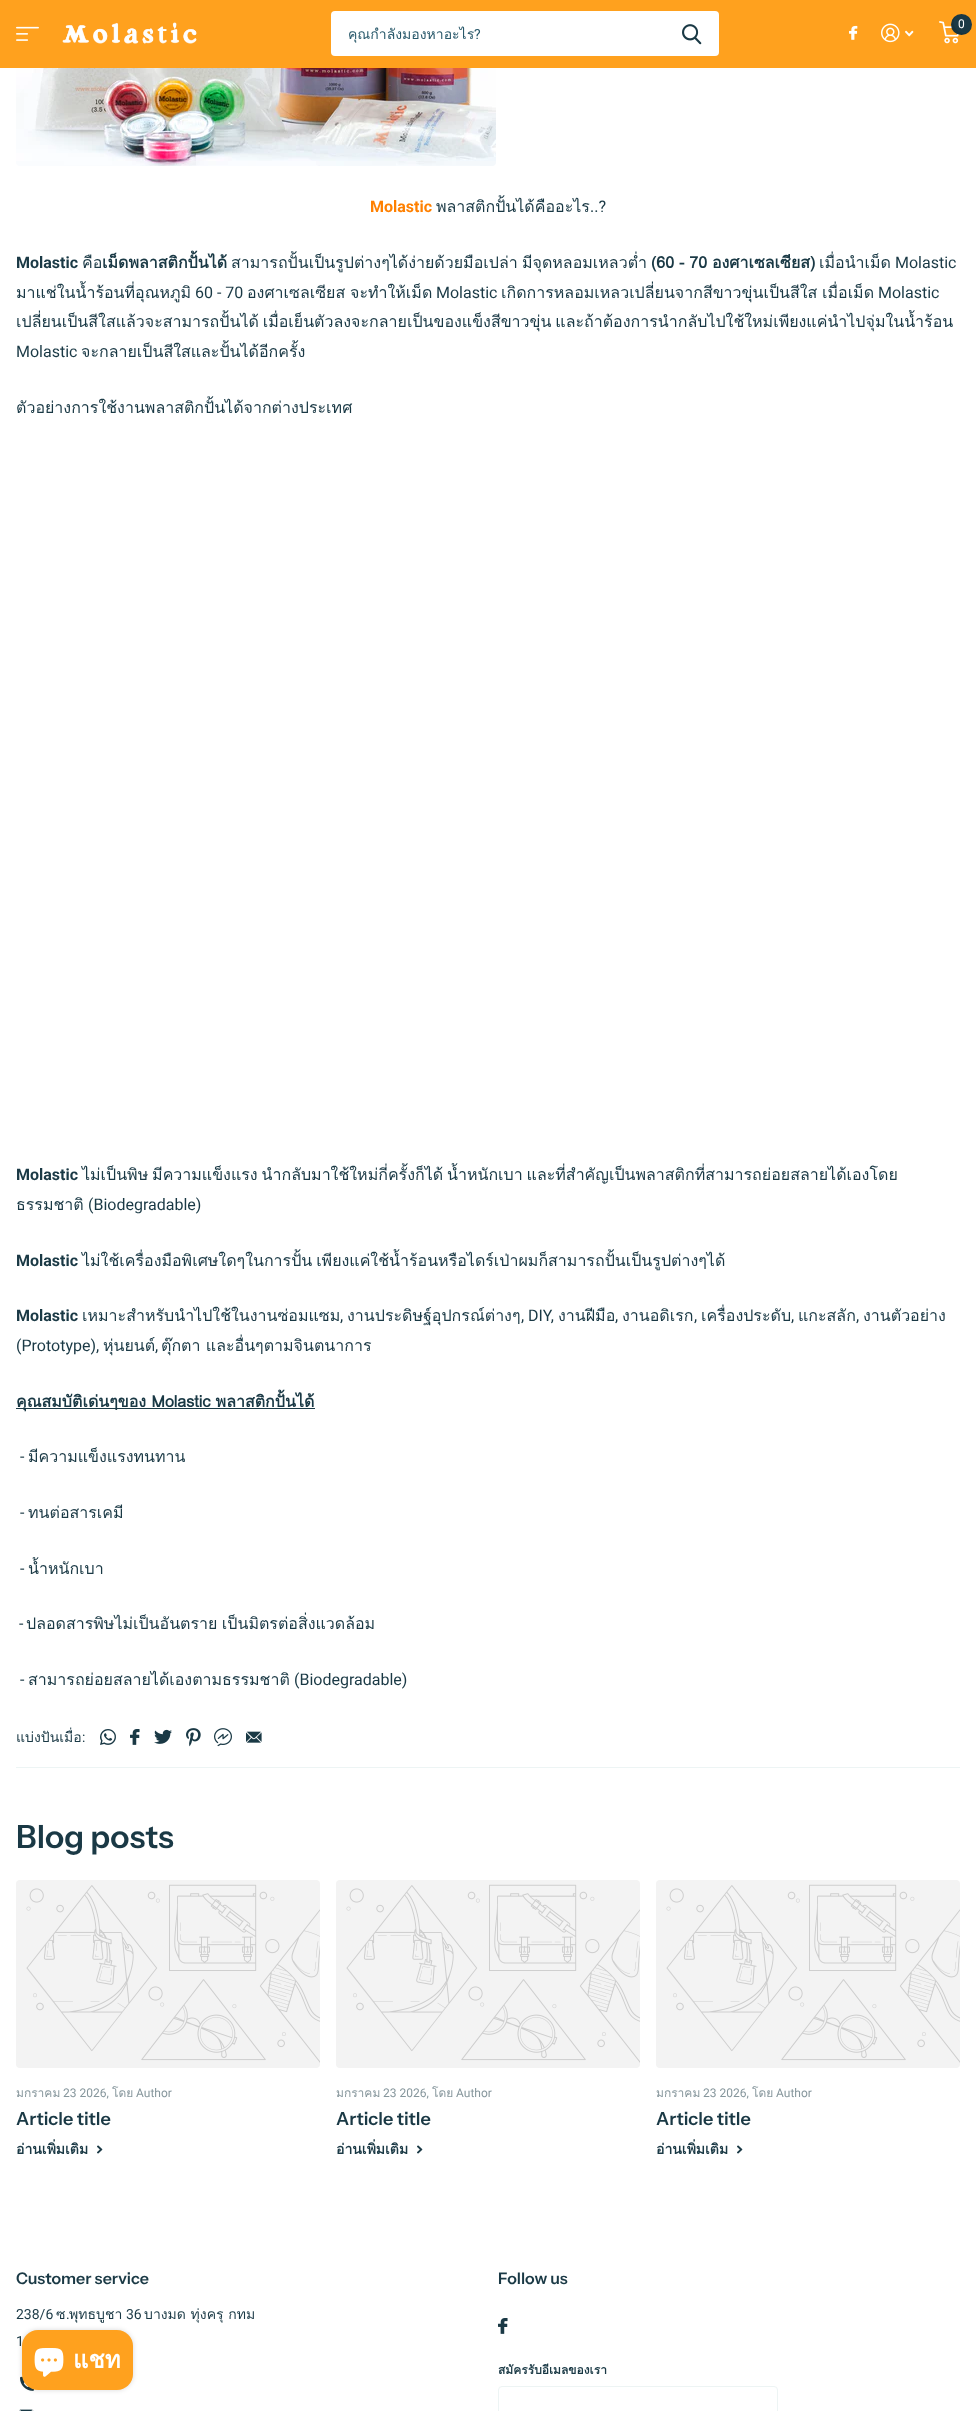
async function draw(canvas) {
  canvas.width = 976;
  canvas.height = 2411;
  const ctx = canvas.getContext('2d');
  ctx.miterLimit = 4;
  ctx.fontKerning = 'normal';
  function label(s, x, y, font, color) {
    ctx.font = font;
    ctx.fillStyle = color;
    ctx.fillText(s, x, y);
  }
  function rect(x, y, w, h, color) {
    ctx.fillStyle = color;
    ctx.fillRect(x, y, w, h);
  }
  function roundedRect(x, y, w, h, r, color) {
    ctx.fillStyle = color;
    ctx.beginPath();
    ctx.roundRect(x, y, w, h, r);
    ctx.fill();
  }
  async function image(src, x, y, w, h) {
    const img = new Image();
    img.src = src;
    await img.decode();
    ctx.drawImage(img, x, y, w, h);
  }
  let path;

  rect(0, 0, 976, 2411, '#fff');
  rect(0, 0, 976, 68, '#ffa11e');
  await image('assets/img1.png', 16, 26, 23, 15);
  await image('assets/img2.png', 849, 25, 9, 15);
  await image('assets/img3.png', 881, 23, 19, 20);
  await image('assets/img4.png', 905, 30, 9, 7);
  await image('assets/img5.png', 939, 21, 20, 23);
  ctx.fillStyle = '#1a3945';
  ctx.beginPath();
  ctx.arc(961.5, 24.5, 10.5, 0, 2 * Math.PI);
  ctx.fill();
  ctx.fillStyle = '#0000001a';
  path = new Path2D('M969.5 31.5C960 37.5 948.5 25 956 15.5C950.5 19.5 949.5 27 954 32C958.5 36 965.5 36 969.5 31.5Z');
  ctx.fill(path);
  label('0', 958, 28, '12px Roboto', '#fff');
  await image('assets/img6.png', 62, 22, 135, 22);
  roundedRect(331, 11, 388, 45, 4, '#fff');
  ctx.save();
  ctx.beginPath();
  ctx.rect(348, 23, 315, 22);
  ctx.clip();
  label('คุณกำลังมองหาอะไร', 348, 39, '14px Loma', '#28586a');
  ctx.restore();
  label('?', 474, 39, '14px Roboto', '#28586a');
  await image('assets/img7.png', 682, 24, 20, 21);
  await image('assets/img8.png', 16, 68, 480, 98);
  label('Molastic', 370, 212, 'bold 16px Roboto', '#ff8000');
  label('พลาสติกปั้นได้คืออะไร', 436, 212, '16px Loma', '#1a3945');
  label('..?', 590, 212, '16px Roboto', '#1a3945');
  label('Molastic', 16, 268, 'bold 16px Roboto', '#1a3945');
  label('คือ', 82, 268, '16px Loma', '#1a3945');
  label('เม็ดพลาสติกปั้นได้', 102, 268, 'bold 16px Loma', '#1a3945');
  label('สามารถปั้นเป็นรูปต่างๆได้ง่ายด้วยมือเปล่า', 231, 268, '16px Loma', '#1a3945');
  label('มีจุดหลอมเหลวต่ำ', 522, 268, '16px Loma', '#1a3945');
  ctx.wordSpacing = '-0.5px';
  label('(60 - 70 องศาเซลเซียส)', 651, 268, 'bold 16px Loma', '#1a3945');
  ctx.wordSpacing = '0px';
  label('เมื่อนำเม็ด', 819, 268, '16px Loma', '#1a3945');
  label('Molastic', 895, 268, '16px Roboto', '#1a3945');
  label('มาแช่ในน้ำร้อนที่อุณหภูมิ', 16, 298, '16px Loma', '#1a3945');
  label('60 - 70', 195, 298, '16px Roboto', '#1a3945');
  label('องศาเซลเซียส', 247, 298, '16px Loma', '#1a3945');
  label('จะทำให้เม็ด', 350, 298, '16px Loma', '#1a3945');
  label('Molastic', 436, 298, '16px Roboto', '#1a3945');
  label('เกิดการหลอมเหลวเปลี่ยนจากสีขาวขุ่นเป็นสีใส', 501, 298, '16px Loma', '#1a3945');
  label('เมื่อเม็ด', 822, 298, '16px Loma', '#1a3945');
  label('Molastic', 878, 298, '16px Roboto', '#1a3945');
  ctx.wordSpacing = '-1.5px';
  label('เปลี่ยนเป็นสีใสแล้วจะสามารถปั้นได้ เมื่อเย็นตัวลงจะกลายเป็นของแข็งสีขาวขุ่น และถ้าต้องการนำกลับไปใช้ใหม่เพียงแค่นำไปจุ่มในน้ำร้อน', 16, 327, '16px Loma', '#1a3945');
  ctx.wordSpacing = '0px';
  label('Molastic', 16, 357, '16px Roboto', '#1a3945');
  label('จะกลายเป็นสีใสและปั้นได้อีกครั้ง', 81, 357, '16px Loma', '#1a3945');
  label('ตัวอย่างการใช้งานพลาสติกปั้นได้จากต่างประเทศ', 16, 413, '16px Loma', '#1a3945');
  label('Molastic', 16, 1180, 'bold 16px Roboto', '#1a3945');
  label('ไม่เ', 82, 1180, '16px Loma', '#1a3945');
  ctx.wordSpacing = '-1.5px';
  label('ป็นพิษ มีความแข็งแรง นำกลับมาใช้ใหม่กี่ครั้งก็ได้ น้ำหนักเบา และที่สำคัญเป็นพลาสติกที่สามารถย่อยสลายได้เองโดย', 106, 1180, '16px Loma', '#1a3945');
  ctx.wordSpacing = '0px';
  label('ธรรมชาติ', 16, 1210, '16px Loma', '#1a3945');
  label('(Biodegradable)', 88, 1210, '16px Roboto', '#1a3945');
  label('Molastic', 16, 1266, 'bold 16px Roboto', '#1a3945');
  ctx.wordSpacing = '-1.5px';
  label('ไม่ใช้เครื่องมือพิเศษใดๆในการปั้น เพียงแค่ใช้น้ำร้อนหรือไดร์เป่าผมก็สามารถปั้นเป็นรูปต่างๆได้', 82, 1266, '16px Loma', '#1a3945');
  ctx.wordSpacing = '0px';
  label('Molastic', 16, 1321, 'bold 16px Roboto', '#1a3945');
  label('เหมาะสำหรับนำไปใช้ในงานซ่อมแซม', 82, 1321, '16px Loma', '#1a3945');
  label(',', 340, 1321, '16px Roboto', '#1a3945');
  label('งานประดิษฐ์อุปกรณ์ต่างๆ', 347, 1321, '16px Loma', '#1a3945');
  label(', DIY,', 521, 1321, '16px Roboto', '#1a3945');
  label('งานฝีมือ', 558, 1321, '16px Loma', '#1a3945');
  label(',', 615, 1321, '16px Roboto', '#1a3945');
  label('งานอดิเรก', 622, 1321, '16px Loma', '#1a3945');
  label(',', 694, 1321, '16px Roboto', '#1a3945');
  label('เครื่องประดับ', 701, 1321, '16px Loma', '#1a3945');
  label(',', 791, 1321, '16px Roboto', '#1a3945');
  label('แกะสลัก', 798, 1321, '16px Loma', '#1a3945');
  label(',', 856, 1321, '16px Roboto', '#1a3945');
  label('งานตัวอย่าง', 863, 1321, '16px Loma', '#1a3945');
  label('(Prototype),', 16, 1351, '16px Roboto', '#1a3945');
  label('หุ่นยนต์', 103, 1351, '16px Loma', '#1a3945');
  label(',', 155, 1351, '16px Roboto', '#1a3945');
  label('ตุ๊กตา และอื่นๆตามจินตนาการ', 161, 1351, '16px Loma', '#1a3945');
  rect(16, 1408, 299, 1, '#1a3945');
  label('คุณสมบัติเด่นๆของ Molastic พลาสติกปั้นได้', 16, 1407, 'bold 16px Loma', '#1a3945');
  label('-', 20, 1462, '16px Roboto', '#1a3945');
  label('มีความแข็งแรงทนทาน', 28, 1462, '16px Loma', '#1a3945');
  label('-', 20, 1518, '16px Roboto', '#1a3945');
  label('ทนต่อสารเคมี', 28, 1518, '16px Loma', '#1a3945');
  label('-', 20, 1574, '16px Roboto', '#1a3945');
  label('น้ำหนักเบา', 28, 1574, '16px Loma', '#1a3945');
  label('-', 19, 1629, '16px Roboto', '#1a3945');
  ctx.wordSpacing = '-1px';
  label('ปลอดสารพิษไม่เป็นอันตราย เป็นมิตรต่อสิ่งแวดล้อม', 26, 1629, '16px Loma', '#1a3945');
  ctx.wordSpacing = '0px';
  label('-', 20, 1685, '16px Roboto', '#1a3945');
  label('สามารถย่อยสลายได้เองตามธรรมชาติ', 28, 1685, '16px Loma', '#1a3945');
  label('(Biodegradable)', 294, 1685, '16px Roboto', '#1a3945');
  label('แบ่งปันเมื่อ', 16, 1742, '14px Loma', '#1a3945');
  label(':', 82, 1742, '14px Roboto', '#1a3945');
  await image('assets/img9.png', 100, 1729, 16, 16);
  await image('assets/img10.png', 130, 1729, 10, 16);
  await image('assets/img11.png', 154, 1729, 18, 15);
  await image('assets/img12.png', 186, 1728, 15, 19);
  await image('assets/img13.png', 214, 1728, 18, 19);
  await image('assets/img14.png', 246, 1731, 16, 12);
  rect(16, 1767, 944, 1, '#edf4f4');
  label('Blog posts', 16, 1848, '600 32px Instrument Sans', '#1a3945');
  roundedRect(16, 1880, 304, 188, 4, '#f3f3f3');
  await image('assets/img15.png', 26, 1884, 294, 179);
  label('มกราคม', 16, 2097, '12px Loma', '#86969c');
  label('23 2026,', 63, 2097, '12px Roboto', '#86969c');
  label('โดย', 112, 2097, '12px Loma', '#86969c');
  label('Author', 136, 2097, '12px Roboto', '#86969c');
  label('Article title', 16, 2125, '600 18px Instrument Sans', '#1a3945');
  label('อ่านเพิ่มเติม', 16, 2154, 'bold 14px Loma', '#1a3945');
  await image('assets/img16.png', 97, 2145, 6, 9);
  roundedRect(336, 1880, 304, 188, 4, '#f3f3f3');
  await image('assets/img15.png', 346, 1884, 294, 179);
  label('มกราคม', 336, 2097, '12px Loma', '#86969c');
  label('23 2026,', 383, 2097, '12px Roboto', '#86969c');
  label('โดย', 432, 2097, '12px Loma', '#86969c');
  label('Author', 456, 2097, '12px Roboto', '#86969c');
  label('Article title', 336, 2125, '600 18px Instrument Sans', '#1a3945');
  label('อ่านเพิ่มเติม', 336, 2154, 'bold 14px Loma', '#1a3945');
  await image('assets/img16.png', 417, 2145, 6, 9);
  roundedRect(656, 1880, 304, 188, 4, '#f3f3f3');
  await image('assets/img17.png', 666, 1884, 294, 179);
  label('มกราคม', 656, 2097, '12px Loma', '#86969c');
  label('23 2026,', 703, 2097, '12px Roboto', '#86969c');
  label('โดย', 752, 2097, '12px Loma', '#86969c');
  label('Author', 776, 2097, '12px Roboto', '#86969c');
  label('Article title', 656, 2125, '600 18px Instrument Sans', '#1a3945');
  label('อ่านเพิ่มเติม', 656, 2154, 'bold 14px Loma', '#1a3945');
  await image('assets/img16.png', 737, 2145, 6, 9);
  label('Customer service', 16, 2284, '600 16px Instrument Sans', '#1a3945');
  label('238/6', 16, 2319, '14px Roboto', '#1a3945');
  label('ซ', 56, 2319, '14px Loma', '#1a3945');
  label('.', 66, 2319, '14px Roboto', '#1a3945');
  label('พุทธบูชา', 69, 2319, '14px Loma', '#1a3945');
  label('36', 126, 2319, '14px Roboto', '#1a3945');
  label('บางมด ทุ่งครุ กทม', 144, 2319, '14px Loma', '#1a3945');
  label('1', 16, 2346, '14px Roboto', '#1a3945');
  await image('assets/img18.png', 20, 2376, 14, 15);
  await image('assets/img19.png', 19, 2409, 15, 2);
  label('Follow us', 498, 2284, '600 16px Instrument Sans', '#1a3945');
  await image('assets/img10.png', 498, 2318, 10, 16);
  label('สมัครรับอีเมลของเรา', 498, 2374, 'bold 12px Loma', '#1a3945');
  ctx.beginPath();
  ctx.roundRect(498.5, 2386.5, 279, 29, 3.5);
  ctx.strokeStyle = '#edf4f4';
  ctx.stroke();
  ctx.fillStyle = '#00000026';
  ctx.filter = 'blur(2.5px)';
  ctx.beginPath();
  ctx.roundRect(22, 2330, 111, 60, 16);
  ctx.fill();
  ctx.filter = 'none';
  roundedRect(22, 2330, 111, 60, 16, '#ffa11e');
  await image('assets/img20.png', 34, 2348, 30, 29);
  label('แชท', 73, 2368, 'bold 24px Loma', '#fff');
}

draw(document.querySelector('canvas'));
